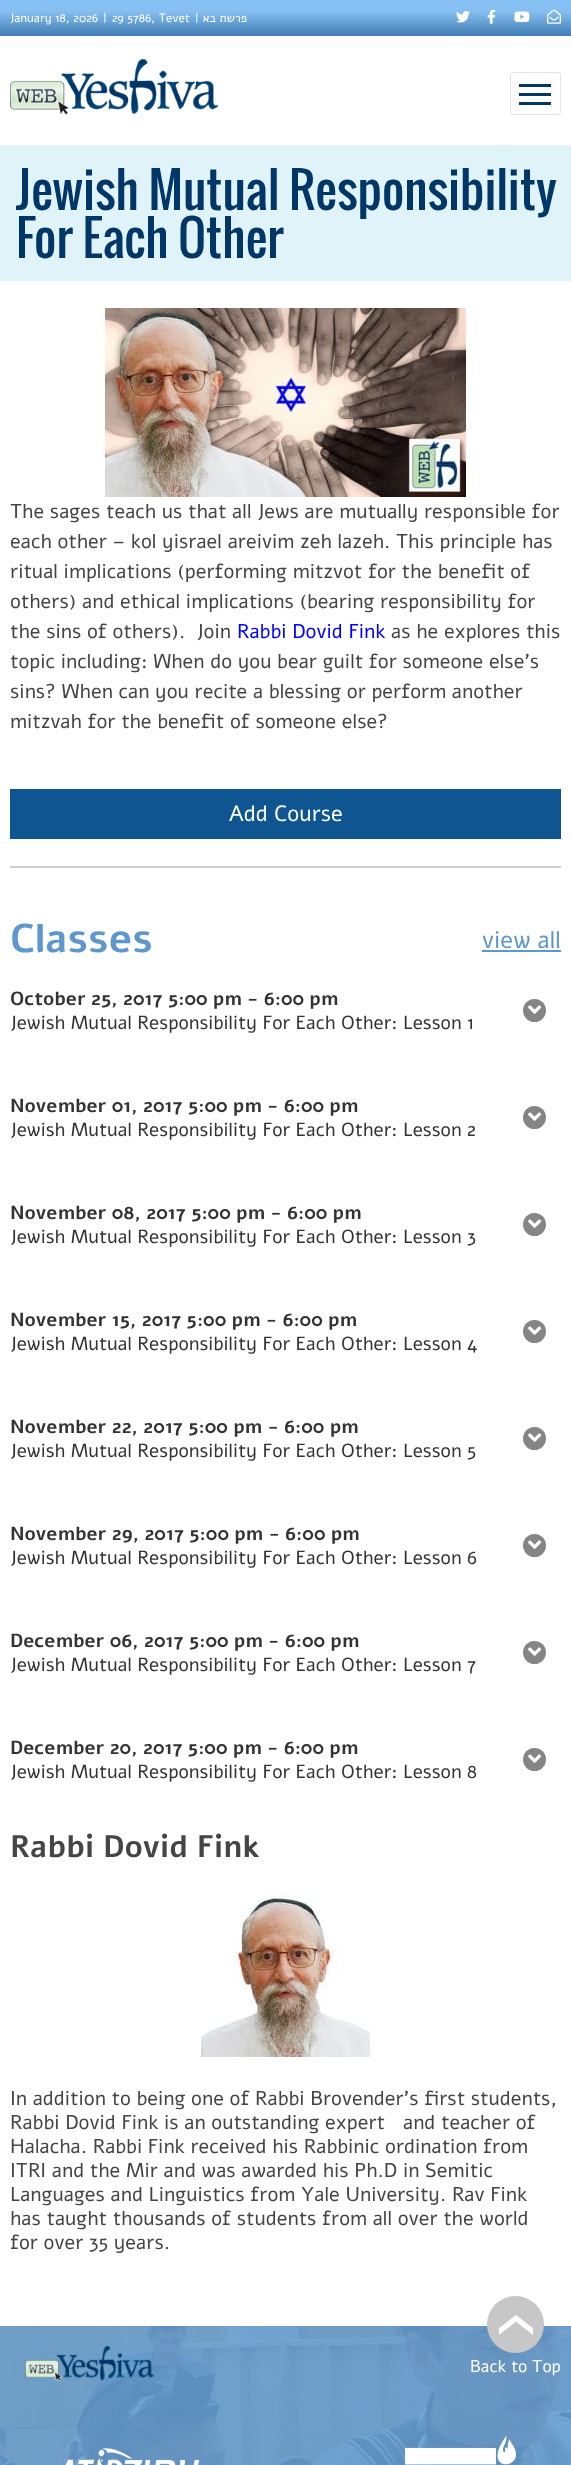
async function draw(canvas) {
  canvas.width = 571;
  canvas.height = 2465;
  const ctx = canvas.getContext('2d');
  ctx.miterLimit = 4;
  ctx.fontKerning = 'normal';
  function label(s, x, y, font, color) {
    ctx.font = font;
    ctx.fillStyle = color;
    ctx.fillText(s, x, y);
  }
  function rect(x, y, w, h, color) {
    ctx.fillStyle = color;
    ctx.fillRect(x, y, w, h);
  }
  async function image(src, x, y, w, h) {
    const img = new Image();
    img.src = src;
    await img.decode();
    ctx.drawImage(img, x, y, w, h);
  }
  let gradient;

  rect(0, 0, 571, 2465, '#fff');
  gradient = ctx.createLinearGradient(286, 36, 286, 0);
  gradient.addColorStop(0, '#417db3');
  gradient.addColorStop(0.69, '#86bff2');
  gradient.addColorStop(1, '#86bff2');
  ctx.fillStyle = gradient;
  ctx.fillRect(0, 0, 571, 36);
  label('January 18, 2026', 10, 22, '12px Alef', '#fff');
  label('|', 103, 22, '12px Alef', '#fff');
  label('29 5786, Tevet', 112, 22, '12px Alef', '#fff');
  label('|', 195, 22, '12px Alef', '#fff');
  ctx.direction = 'rtl';
  label('פרשת בא', 247, 22, '12px Alef', '#fff');
  await image('assets/img1.png', 456, 11, 14, 12);
  await image('assets/img2.png', 487, 9, 9, 15);
  await image('assets/img3.png', 514, 11, 16, 11);
  await image('assets/img4.png', 547, 9, 14, 15);
  await image('assets/img5.png', 10, 59, 208, 56);
  ctx.beginPath();
  ctx.roundRect(510.5, 72.5, 50, 42, 2.5);
  ctx.strokeStyle = '#e3e3e3';
  ctx.stroke();
  rect(519, 84, 32, 3, '#003768');
  rect(519, 93, 32, 3, '#003768');
  rect(519, 102, 32, 3, '#003768');
  rect(0, 145, 571, 136, '#e0f3f9');
  ctx.direction = 'ltr';
  label('Jewish Mutual Responsibility', 16, 210, '48px Oswald', '#003768');
  label('For Each Other', 16, 258, '48px Oswald', '#003768');
  rect(10, 866, 551, 2, '#cfcfcf');
  await image('assets/img6.png', 105, 308, 361, 189);
  label('The sages teach us that all Jews are mutually responsible for', 10, 518, '20px Alef', '#454545');
  label('each other – kol yisrael areivim zeh lazeh. This principle has', 10, 548, '20px Alef', '#454545');
  label('ritual implications (performing mitzvot for the benefit of', 10, 578, '20px Alef', '#454545');
  label('others) and ethical implications (bearing responsibility for', 10, 608, '20px Alef', '#454545');
  label('the sins of others).  Join', 10, 638, '20px Alef', '#454545');
  label('Rabbi Dovid Fink', 237, 638, '20px Alef', '#00f');
  label('as he explores this', 391, 638, '20px Alef', '#454545');
  label('topic including: When do you bear guilt for someone else’s', 10, 668, '20px Alef', '#454545');
  label('sins? When can you recite a blessing or perform another', 10, 698, '20px Alef', '#454545');
  label('mitzvah for the benefit of someone else?', 10, 728, '20px Alef', '#454545');
  rect(10, 789, 551, 50, '#0f5592');
  label('Add Course', 229, 821, '22px Alef', '#fff');
  label('Classes', 10, 952, 'bold 40px Alef', '#5e97cc');
  label('view all', 482, 948, '24px Alef', '#5e97cc');
  rect(482, 950, 79, 2, '#5e97cc');
  label('October 25, 2017 5:00 pm - 6:00 pm', 10, 1005, 'bold 19px Alef', '#333');
  ctx.fillStyle = '#858585';
  ctx.beginPath();
  ctx.arc(534.5, 1010.5, 11.5, 0, 2 * Math.PI);
  ctx.fill();
  await image('assets/img7.png', 528, 1005, 14, 9);
  label('Jewish Mutual Responsibility For Each Other: Lesson 1', 10, 1029, '19px Alef', '#333');
  label('November 01, 2017 5:00 pm - 6:00 pm', 10, 1112, 'bold 19px Alef', '#333');
  ctx.fillStyle = '#858585';
  ctx.beginPath();
  ctx.arc(534.5, 1117.5, 11.5, 0, 2 * Math.PI);
  ctx.fill();
  await image('assets/img7.png', 528, 1112, 14, 9);
  label('Jewish Mutual Responsibility For Each Other: Lesson 2', 10, 1136, '19px Alef', '#333');
  label('November 08, 2017 5:00 pm - 6:00 pm', 10, 1219, 'bold 19px Alef', '#333');
  ctx.fillStyle = '#858585';
  ctx.beginPath();
  ctx.arc(534.5, 1224.5, 11.5, 0, 2 * Math.PI);
  ctx.fill();
  await image('assets/img7.png', 528, 1219, 14, 9);
  label('Jewish Mutual Responsibility For Each Other: Lesson 3', 10, 1243, '19px Alef', '#333');
  label('November 15, 2017 5:00 pm - 6:00 pm', 10, 1326, 'bold 19px Alef', '#333');
  ctx.fillStyle = '#858585';
  ctx.beginPath();
  ctx.arc(534.5, 1331.5, 11.5, 0, 2 * Math.PI);
  ctx.fill();
  await image('assets/img7.png', 528, 1326, 14, 9);
  label('Jewish Mutual Responsibility For Each Other: Lesson 4', 10, 1350, '19px Alef', '#333');
  label('November 22, 2017 5:00 pm - 6:00 pm', 10, 1433, 'bold 19px Alef', '#333');
  ctx.fillStyle = '#858585';
  ctx.beginPath();
  ctx.arc(534.5, 1438.5, 11.5, 0, 2 * Math.PI);
  ctx.fill();
  await image('assets/img7.png', 528, 1433, 14, 9);
  label('Jewish Mutual Responsibility For Each Other: Lesson 5', 10, 1457, '19px Alef', '#333');
  label('November 29, 2017 5:00 pm - 6:00 pm', 10, 1540, 'bold 19px Alef', '#333');
  ctx.fillStyle = '#858585';
  ctx.beginPath();
  ctx.arc(534.5, 1545.5, 11.5, 0, 2 * Math.PI);
  ctx.fill();
  await image('assets/img7.png', 528, 1540, 14, 9);
  label('Jewish Mutual Responsibility For Each Other: Lesson 6', 10, 1564, '19px Alef', '#333');
  label('December 06, 2017 5:00 pm - 6:00 pm', 10, 1647, 'bold 19px Alef', '#333');
  ctx.fillStyle = '#858585';
  ctx.beginPath();
  ctx.arc(534.5, 1652.5, 11.5, 0, 2 * Math.PI);
  ctx.fill();
  await image('assets/img7.png', 528, 1647, 14, 9);
  label('Jewish Mutual Responsibility For Each Other: Lesson 7', 10, 1671, '19px Alef', '#333');
  label('December 20, 2017 5:00 pm - 6:00 pm', 10, 1754, 'bold 19px Alef', '#333');
  ctx.fillStyle = '#858585';
  ctx.beginPath();
  ctx.arc(534.5, 1759.5, 11.5, 0, 2 * Math.PI);
  ctx.fill();
  await image('assets/img7.png', 528, 1754, 14, 9);
  label('Jewish Mutual Responsibility For Each Other: Lesson 8', 10, 1778, '19px Alef', '#333');
  label('Rabbi Dovid Fink', 10, 1857, 'bold 31px Alef', '#454545');
  await image('assets/img8.png', 201, 1893, 169, 164);
  label('In addition to being one of Rabbi Brovender\'s first students,', 10, 2105, '20px Alef', '#454545');
  label('Rabbi Dovid Fink is an outstanding expert', 10, 2129, '20px Alef', '#454545');
  label('and teacher of', 403, 2129, '20px Alef', '#454545');
  label('Halacha. Rabbi Fink received his Rabbinic ordination from', 10, 2153, '20px Alef', '#454545');
  label('ITRI and the Mir and was awarded his Ph.D in Semitic', 10, 2177, '20px Alef', '#454545');
  label('Languages and Linguistics from Yale University. Rav Fink', 10, 2201, '20px Alef', '#454545');
  label('has taught thousands of students from all over the world', 10, 2225, '20px Alef', '#454545');
  label('for over 35 years.', 10, 2249, '20px Alef', '#454545');
  await image('assets/img9.png', 0, 2326, 571, 139);
  await image('assets/img10.png', 25, 2346, 129, 35);
  await image('assets/img11.png', 65, 2448, 134, 17);
  await image('assets/img12.png', 405, 2436, 111, 29);
  ctx.fillStyle = '#c7c7c7';
  ctx.beginPath();
  ctx.arc(515.5, 2324.5, 28.5, 0, 2 * Math.PI);
  ctx.fill();
  await image('assets/img13.png', 499, 2315, 34, 20);
  label('Back to Top', 470, 2372, '17px Alef', '#fff');
}

draw(document.querySelector('canvas'));
